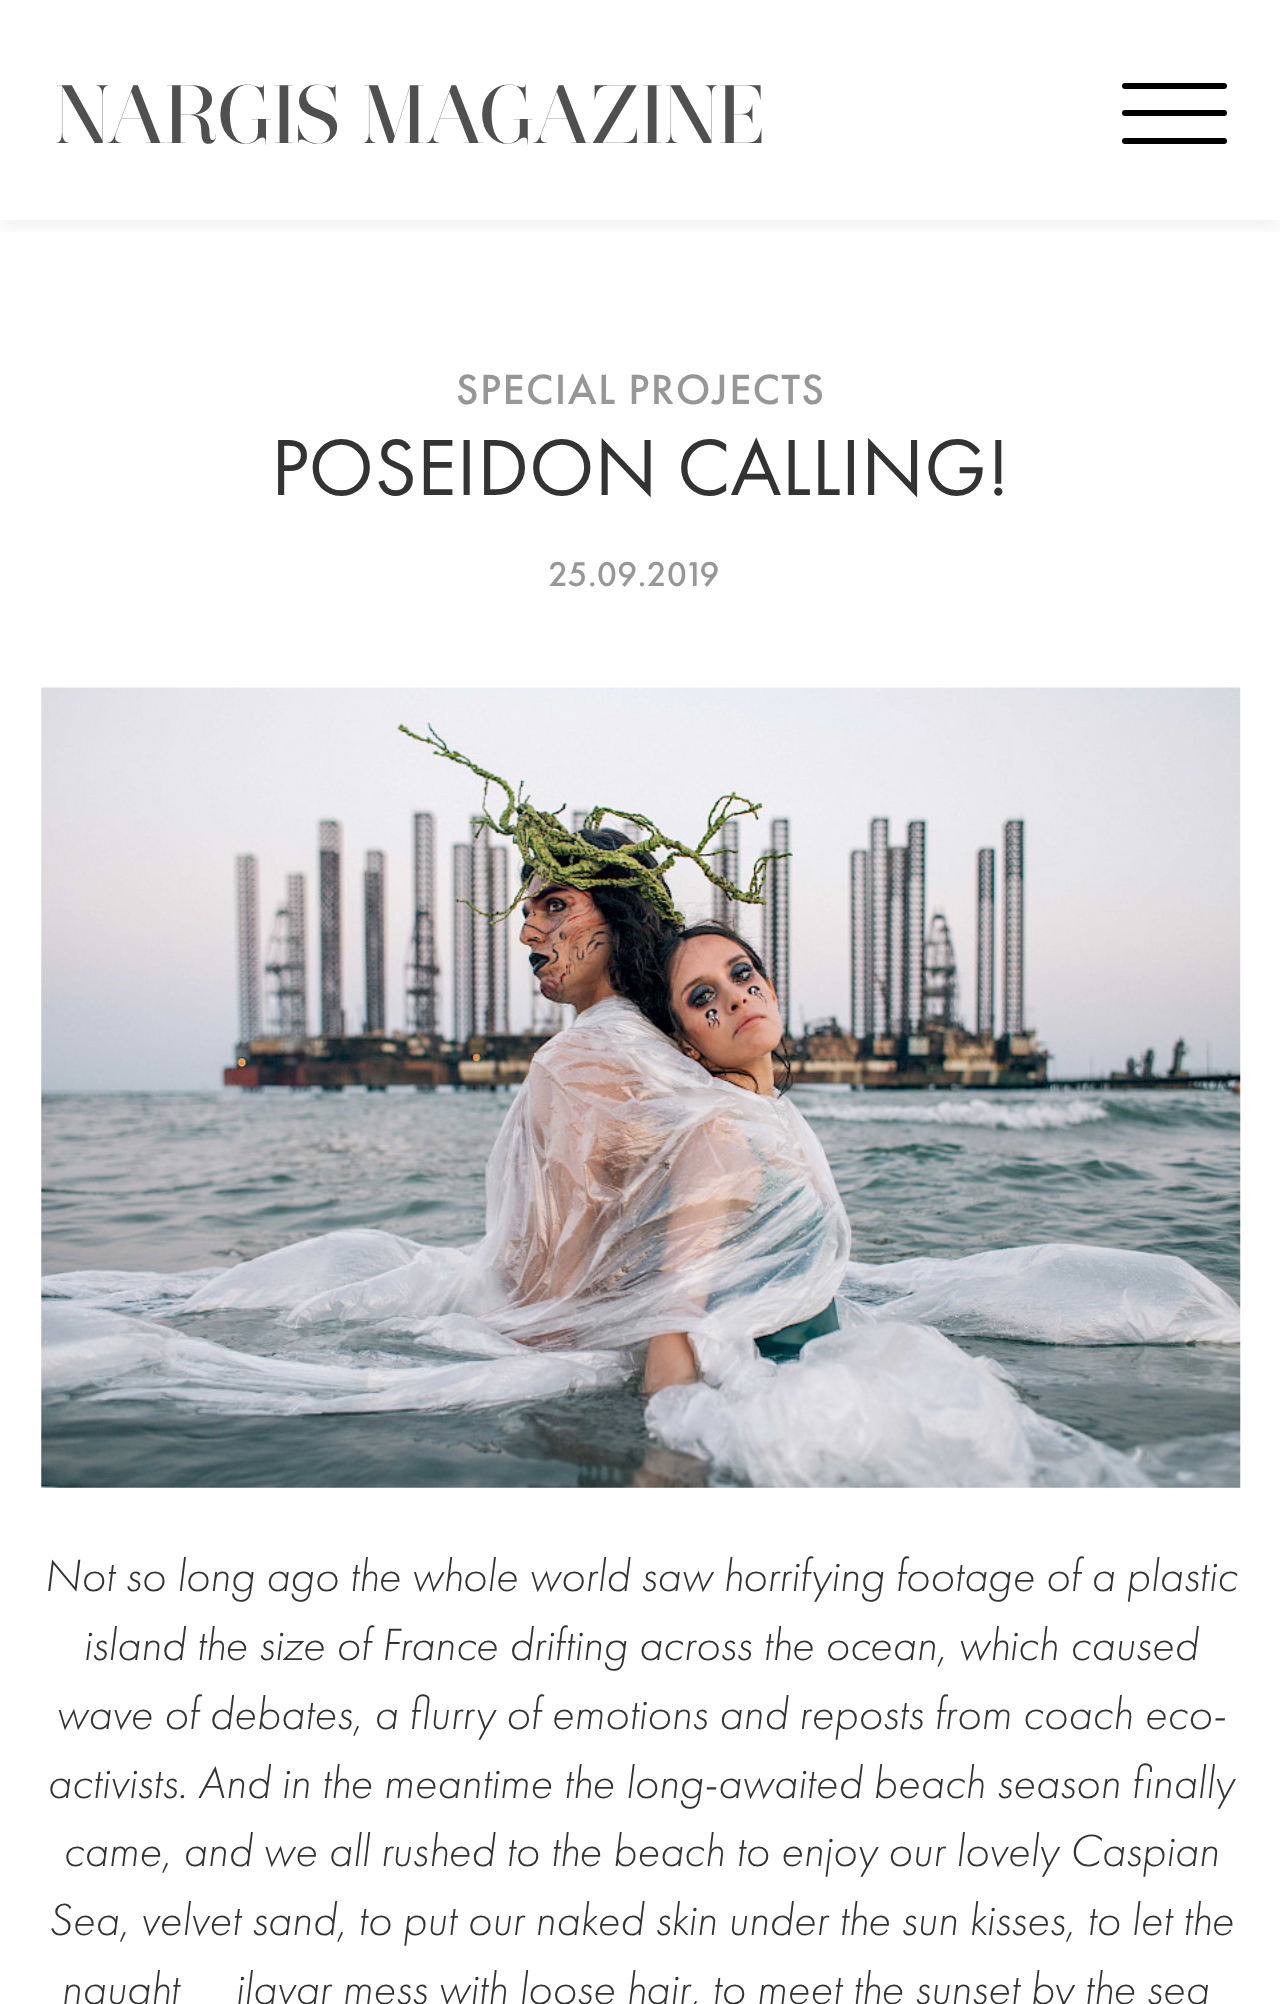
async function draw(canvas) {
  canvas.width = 1280;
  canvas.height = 2004;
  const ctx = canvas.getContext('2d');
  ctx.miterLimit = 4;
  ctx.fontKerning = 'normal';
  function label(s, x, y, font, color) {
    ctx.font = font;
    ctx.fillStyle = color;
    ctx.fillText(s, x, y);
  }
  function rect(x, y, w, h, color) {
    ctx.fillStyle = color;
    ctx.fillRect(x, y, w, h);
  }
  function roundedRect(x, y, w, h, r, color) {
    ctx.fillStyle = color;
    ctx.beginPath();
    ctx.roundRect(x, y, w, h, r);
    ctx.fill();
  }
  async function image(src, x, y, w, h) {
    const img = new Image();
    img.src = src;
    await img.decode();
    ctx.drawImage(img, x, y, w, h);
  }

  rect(0, 0, 1280, 2004, '#fff');
  ctx.save();
  ctx.beginPath();
  ctx.rect(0, 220, 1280, 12);
  ctx.clip();
  ctx.fillStyle = '#0000001a';
  ctx.filter = 'blur(14px)';
  ctx.beginPath();
  ctx.rect(0, 0, 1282, 220);
  ctx.fill();
  ctx.filter = 'none';
  ctx.restore();
  ctx.letterSpacing = '0.4px';
  label('NARGIS MAGAZINE', 55, 143, '500 82.5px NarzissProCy', '#505050');
  roundedRect(1122, 138, 105, 6, 3, '#000');
  roundedRect(1122, 83, 105, 6, 3, '#000');
  roundedRect(1122, 110, 105, 6, 3, '#000');
  ctx.letterSpacing = '1.4px';
  label('SPECIAL PROJECTS', 456, 404, '500 44px Futura PT', '#979797');
  ctx.letterSpacing = '0px';
  label('POSEIDON CALLING!', 271, 495, '82.5px Futura PT', '#333');
  label('25.09.2019', 548, 586, '500 35.75px Futura PT', '#979797');
  await image('assets/img1.png', 41, 687, 1200, 801);
  label('Not so long ago the whole world saw horrifying footage of a plastic', 44, 1591, 'italic 300 46.75px Futura PT', '#333');
  label('island the size of France drifting across the ocean, which caused', 83, 1660, 'italic 300 46.75px Futura PT', '#333');
  label('wave of debates, a flurry of emotions and reposts from coach eco-', 56, 1729, 'italic 300 46.75px Futura PT', '#333');
  label('activists. And in the meantime the long-awaited beach season finally', 47, 1798, 'italic 300 46.75px Futura PT', '#333');
  label('came, and we all rushed to the beach to enjoy our lovely Caspian', 63, 1866, 'italic 300 46.75px Futura PT', '#333');
  label('Sea, velvet sand, to put our naked skin under the sun kisses, to let the', 48, 1935, 'italic 300 46.75px Futura PT', '#333');
  label('naught', 61, 2004, 'italic 300 46.75px Futura PT', '#333');
  label('ilavar mess with loose hair, to meet the sunset by the sea', 235, 2004, 'italic 300 46.75px Futura PT', '#333');
}

draw(document.querySelector('canvas'));
